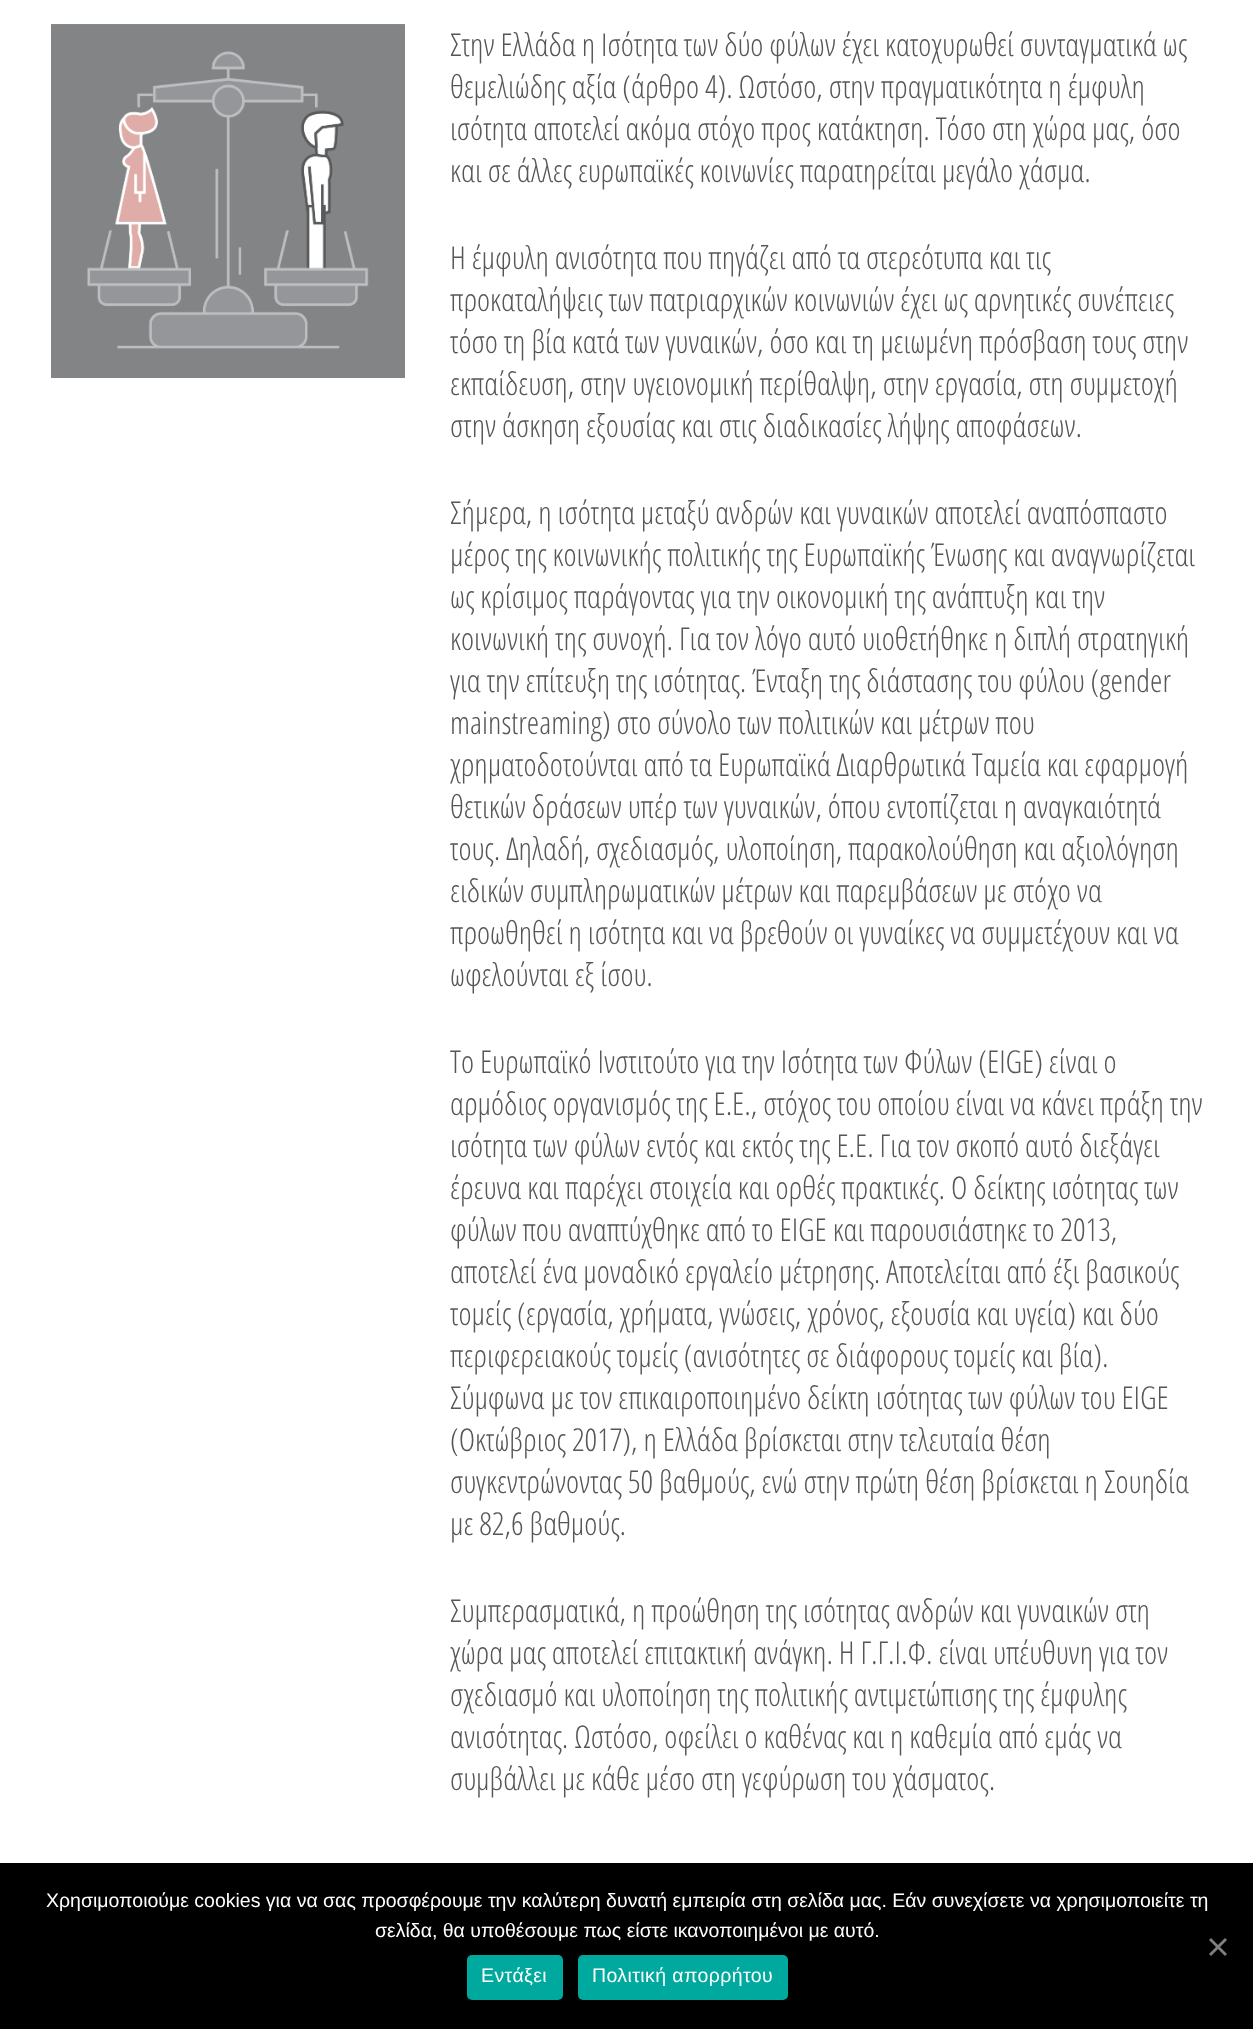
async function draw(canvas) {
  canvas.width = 1253;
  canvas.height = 2029;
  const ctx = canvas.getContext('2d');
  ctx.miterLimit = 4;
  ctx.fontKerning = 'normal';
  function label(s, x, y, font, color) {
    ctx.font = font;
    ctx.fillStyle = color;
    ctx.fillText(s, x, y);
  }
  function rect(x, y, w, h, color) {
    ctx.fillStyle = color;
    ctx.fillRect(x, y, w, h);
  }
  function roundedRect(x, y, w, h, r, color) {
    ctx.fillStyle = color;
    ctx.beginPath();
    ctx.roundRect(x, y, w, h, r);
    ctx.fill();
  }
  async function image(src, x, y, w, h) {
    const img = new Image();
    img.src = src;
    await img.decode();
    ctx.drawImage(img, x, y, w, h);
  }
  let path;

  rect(0, 0, 1253, 2029, '#fff');
  await image('assets/img1.png', 51, 24, 354, 354);
  label('Στην Ελλάδα η Ισότητα των δύο φύλων έχει κατοχυρωθεί συνταγματικά ως', 450, 56, '300 31.5px Open Sans Condensed', '#565656');
  label('θεμελιώδης αξία (άρθρο 4). Ωστόσο, στην πραγματικότητα η έμφυλη', 450, 98, '300 31.5px Open Sans Condensed', '#565656');
  label('ισότητα αποτελεί ακόμα στόχο προς κατάκτηση. Τόσο στη χώρα μας, όσο', 450, 140, '300 31.5px Open Sans Condensed', '#565656');
  label('και σε άλλες ευρωπαϊκές κοινωνίες παρατηρείται μεγάλο χάσμα.', 450, 182, '300 31.5px Open Sans Condensed', '#565656');
  label('Η έμφυλη ανισότητα που πηγάζει από τα στερεότυπα και τις', 450, 269, '300 31.5px Open Sans Condensed', '#565656');
  label('προκαταλήψεις των πατριαρχικών κοινωνιών έχει ως αρνητικές συνέπειες', 450, 311, '300 31.5px Open Sans Condensed', '#565656');
  label('τόσο τη βία κατά των γυναικών, όσο και τη μειωμένη πρόσβαση τους στην', 450, 353, '300 31.5px Open Sans Condensed', '#565656');
  label('εκπαίδευση, στην υγειονομική περίθαλψη, στην εργασία, στη συμμετοχή', 450, 395, '300 31.5px Open Sans Condensed', '#565656');
  label('στην άσκηση εξουσίας και στις διαδικασίες λήψης αποφάσεων.', 450, 437, '300 31.5px Open Sans Condensed', '#565656');
  label('Σήμερα, η ισότητα µεταξύ ανδρών και γυναικών αποτελεί αναπόσπαστο', 450, 524, '300 31.5px Open Sans Condensed', '#565656');
  label('µέρος της κοινωνικής πολιτικής της Ευρωπαϊκής Ένωσης και αναγνωρίζεται', 450, 566, '300 31.5px Open Sans Condensed', '#565656');
  label('ως κρίσιµος παράγοντας για την οικονοµική της ανάπτυξη και την', 450, 608, '300 31.5px Open Sans Condensed', '#565656');
  label('κοινωνική της συνοχή. Για τον λόγο αυτό υιοθετήθηκε η διπλή στρατηγική', 450, 650, '300 31.5px Open Sans Condensed', '#565656');
  label('για την επίτευξη της ισότητας. Ένταξη της διάστασης του φύλου (gender', 450, 692, '300 31.5px Open Sans Condensed', '#565656');
  label('mainstreaming) στο σύνολο των πολιτικών και µέτρων που', 450, 734, '300 31.5px Open Sans Condensed', '#565656');
  label('χρηµατοδοτούνται από τα Ευρωπαϊκά Διαρθρωτικά Ταµεία και εφαρµογή', 450, 776, '300 31.5px Open Sans Condensed', '#565656');
  label('θετικών δράσεων υπέρ των γυναικών, όπου εντοπίζεται η αναγκαιότητά', 450, 818, '300 31.5px Open Sans Condensed', '#565656');
  label('τους. Δηλαδή, σχεδιασµός, υλοποίηση, παρακολούθηση και αξιολόγηση', 450, 860, '300 31.5px Open Sans Condensed', '#565656');
  label('ειδικών συµπληρωµατικών µέτρων και παρεµβάσεων µε στόχο να', 450, 902, '300 31.5px Open Sans Condensed', '#565656');
  label('προωθηθεί η ισότητα και να βρεθούν οι γυναίκες να συµµετέχουν και να', 450, 944, '300 31.5px Open Sans Condensed', '#565656');
  label('ωφελούνται εξ ίσου.', 450, 986, '300 31.5px Open Sans Condensed', '#565656');
  label('Το Ευρωπαϊκό Ινστιτούτο για την Ισότητα των Φύλων (EIGE) είναι ο', 450, 1073, '300 31.5px Open Sans Condensed', '#565656');
  label('αρμόδιος οργανισμός της Ε.Ε., στόχος του οποίου είναι να κάνει πράξη την', 450, 1115, '300 31.5px Open Sans Condensed', '#565656');
  label('ισότητα των φύλων εντός και εκτός της Ε.Ε. Για τον σκοπό αυτό διεξάγει', 450, 1157, '300 31.5px Open Sans Condensed', '#565656');
  label('έρευνα και παρέχει στοιχεία και ορθές πρακτικές. Ο δείκτης ισότητας των', 450, 1199, '300 31.5px Open Sans Condensed', '#565656');
  label('φύλων που αναπτύχθηκε από το EIGE και παρουσιάστηκε το 2013,', 450, 1241, '300 31.5px Open Sans Condensed', '#565656');
  label('αποτελεί ένα μοναδικό εργαλείο μέτρησης. Αποτελείται από έξι βασικούς', 450, 1283, '300 31.5px Open Sans Condensed', '#565656');
  label('τομείς (εργασία, χρήματα, γνώσεις, χρόνος, εξουσία και υγεία) και δύο', 450, 1325, '300 31.5px Open Sans Condensed', '#565656');
  label('περιφερειακούς τομείς (ανισότητες σε διάφορους τομείς και βία).', 450, 1367, '300 31.5px Open Sans Condensed', '#565656');
  label('Σύμφωνα με τον επικαιροποιημένο δείκτη ισότητας των φύλων του EIGE', 450, 1409, '300 31.5px Open Sans Condensed', '#565656');
  label('(Οκτώβριος 2017), η Ελλάδα βρίσκεται στην τελευταία θέση', 450, 1451, '300 31.5px Open Sans Condensed', '#565656');
  label('συγκεντρώνοντας 50 βαθμούς, ενώ στην πρώτη θέση βρίσκεται η Σουηδία', 450, 1493, '300 31.5px Open Sans Condensed', '#565656');
  label('με 82,6 βαθμούς.', 450, 1535, '300 31.5px Open Sans Condensed', '#565656');
  label('Συμπερασματικά, η προώθηση της ισότητας ανδρών και γυναικών στη', 450, 1622, '300 31.5px Open Sans Condensed', '#565656');
  label('χώρα μας αποτελεί επιτακτική ανάγκη. Η Γ.Γ.Ι.Φ. είναι υπέυθυνη για τον', 450, 1664, '300 31.5px Open Sans Condensed', '#565656');
  label('σχεδιασμό και υλοποίηση της πολιτικής αντιμετώπισης της έμφυλης', 450, 1706, '300 31.5px Open Sans Condensed', '#565656');
  label('ανισότητας. Ωστόσο, οφείλει ο καθένας και η καθεμία από εμάς να', 450, 1748, '300 31.5px Open Sans Condensed', '#565656');
  label('συμβάλλει με κάθε μέσο στη γεφύρωση του χάσματος.', 450, 1790, '300 31.5px Open Sans Condensed', '#565656');
  rect(0, 1863, 1253, 166, '#000');
  label('Χρησιμοποιούμε cookies για να σας προσφέρουμε την καλύτερη δυνατή εμπειρία στη σελίδα μας. Εάν συνεχίσετε να χρησιμοποιείτε τη', 46, 1907, '19.5px Liberation Sans', '#fff');
  label('σελίδα, θα υποθέσουμε πως είστε ικανοποιημένοι με αυτό.', 375, 1937, '19.5px Liberation Sans', '#fff');
  ctx.fillStyle = '#808080';
  path = new Path2D('M1225 1938L1227 1940L1211 1956L1209 1954Z');
  ctx.fill(path);
  path = new Path2D('M1209 1940L1211 1938L1227 1954L1225 1956Z');
  ctx.fill(path);
  roundedRect(467, 1955, 96, 45, 5, '#00a99d');
  ctx.letterSpacing = '0.4px';
  label('Εντάξει', 481, 1982, '19.5px Liberation Sans', '#fff');
  roundedRect(578, 1955, 210, 45, 5, '#00a99d');
  label('Πολιτική απορρήτου', 592, 1982, '19.5px Liberation Sans', '#fff');
}

draw(document.querySelector('canvas'));
